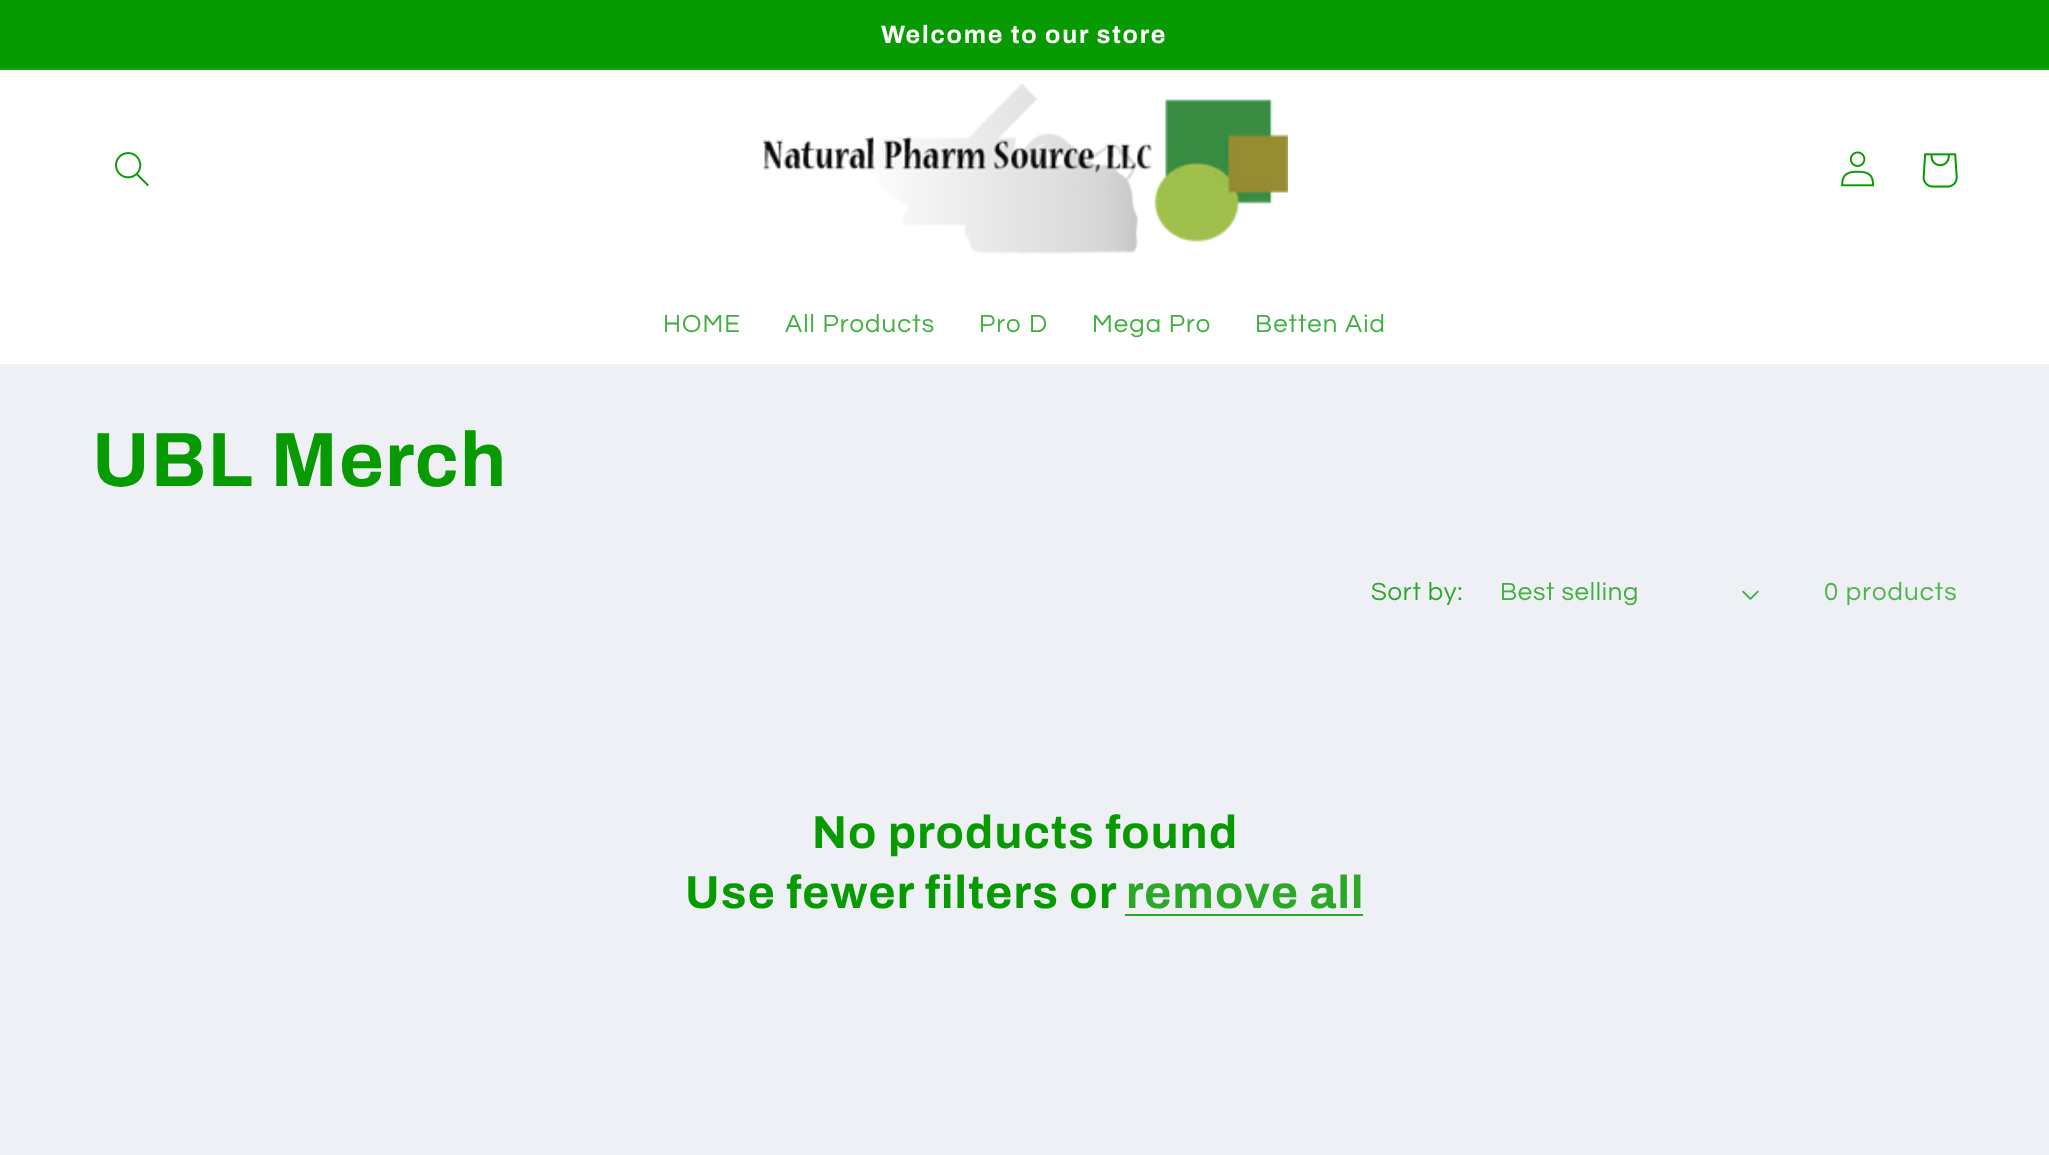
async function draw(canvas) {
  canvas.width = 2049;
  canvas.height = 1155;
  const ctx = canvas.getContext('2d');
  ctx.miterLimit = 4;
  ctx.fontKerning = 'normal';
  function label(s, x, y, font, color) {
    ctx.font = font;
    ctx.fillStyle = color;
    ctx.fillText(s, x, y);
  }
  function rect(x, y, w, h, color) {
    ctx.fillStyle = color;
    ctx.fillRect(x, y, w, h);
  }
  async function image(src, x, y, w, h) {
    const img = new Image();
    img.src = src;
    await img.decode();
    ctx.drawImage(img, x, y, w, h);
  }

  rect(0, 0, 2049, 1155, '#eff0f5');
  rect(0, 0, 2049, 68, '#079b01');
  rect(0, 68, 2049, 2, '#1ba315');
  ctx.letterSpacing = '1.8px';
  label('Welcome to our store', 881, 43, 'bold 25px Archivo', '#fff');
  rect(0, 70, 2049, 294, '#fff');
  await image('assets/img1.png', 115, 152, 34, 34);
  await image('assets/img2.png', 763, 84, 525, 170);
  await image('assets/img3.png', 1841, 151, 34, 36);
  await image('assets/img4.png', 1922, 153, 36, 35);
  ctx.letterSpacing = '1.1px';
  label('HOME', 663, 332, '25.75px Questrial', '#41b03e');
  label('All Products', 785, 332, '25.75px Questrial', '#41b03e');
  label('Pro D', 979, 332, '25.75px Questrial', '#41b03e');
  label('Mega Pro', 1092, 332, '25.75px Questrial', '#41b03e');
  label('Betten Aid', 1255, 332, '25.75px Questrial', '#41b03e');
  ctx.letterSpacing = '1.2px';
  label('UBL Merch', 92, 486, 'bold 77px Archivo', '#079b01');
  ctx.letterSpacing = '0.75px';
  label('Sort by:', 1371, 600, '25.75px Questrial', '#2aa826');
  label('Best selling', 1500, 600, '25.75px Questrial', '#41b03e');
  await image('assets/img5.png', 1742, 590, 17, 10);
  ctx.letterSpacing = '1.1px';
  label('0 products', 1824, 600, '25.75px Questrial', '#4db54a');
  ctx.letterSpacing = '1.2px';
  label('No products found', 812, 848, 'bold 46.25px Archivo', '#079b01');
  label('Use fewer filters or', 685, 908, 'bold 46.25px Archivo', '#079b01');
  label('remove all', 1126, 908, 'bold 46.25px Archivo', '#2aa826');
  rect(1125, 914, 238, 2, '#2aa826');
}

draw(document.querySelector('canvas'));
